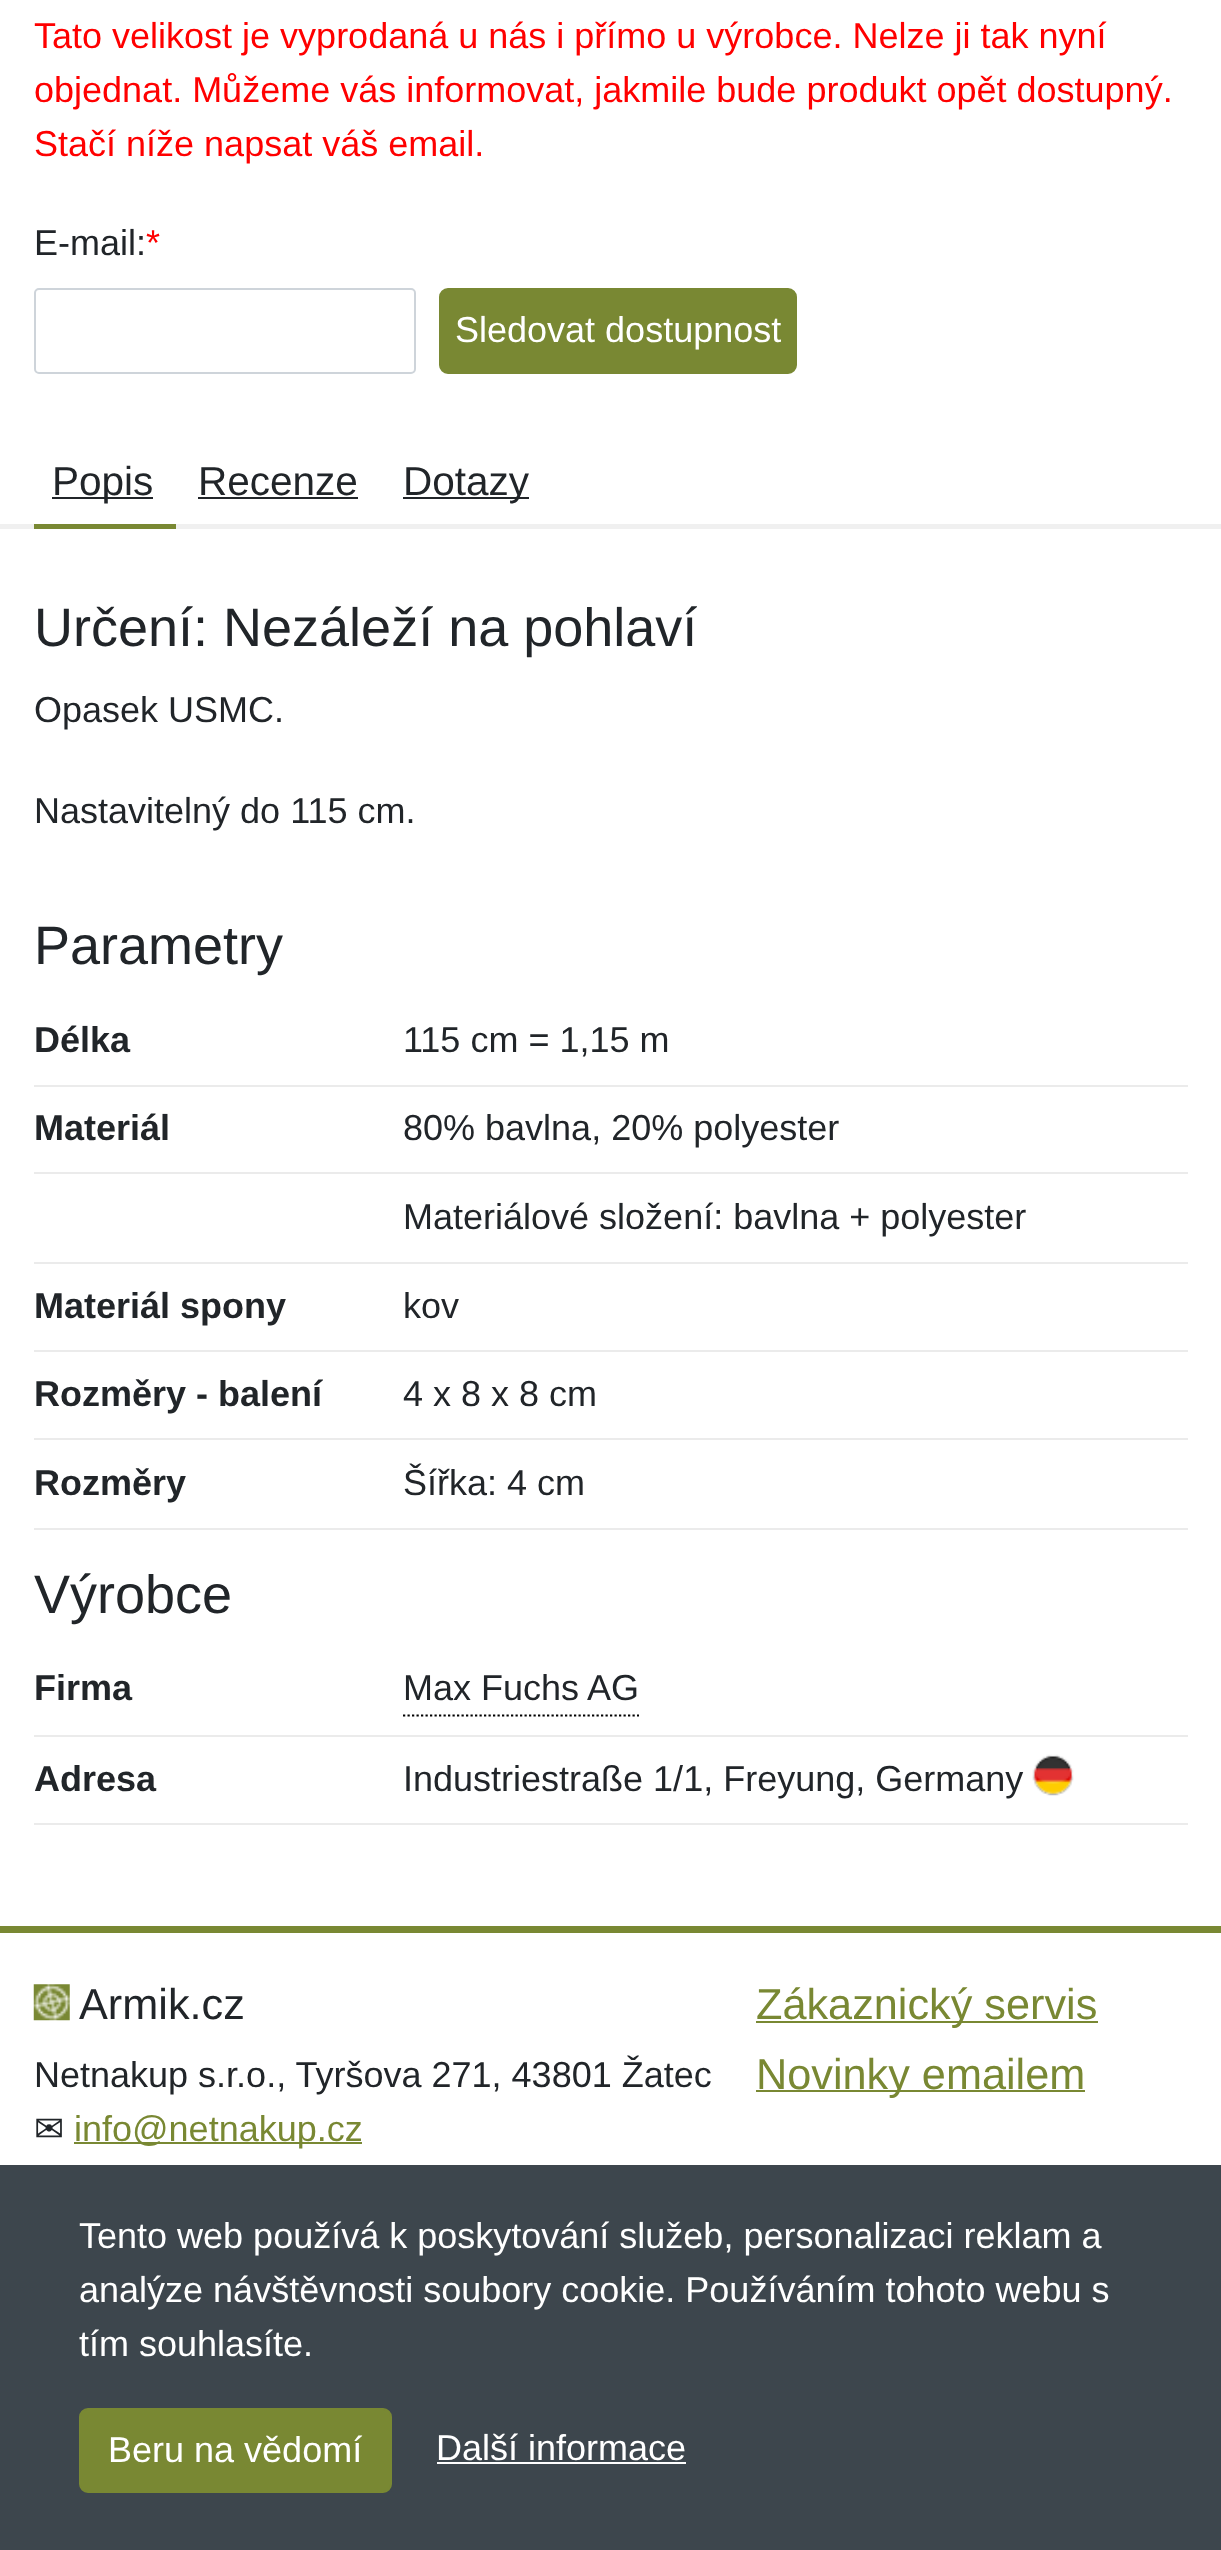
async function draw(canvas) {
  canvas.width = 1221;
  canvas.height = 2550;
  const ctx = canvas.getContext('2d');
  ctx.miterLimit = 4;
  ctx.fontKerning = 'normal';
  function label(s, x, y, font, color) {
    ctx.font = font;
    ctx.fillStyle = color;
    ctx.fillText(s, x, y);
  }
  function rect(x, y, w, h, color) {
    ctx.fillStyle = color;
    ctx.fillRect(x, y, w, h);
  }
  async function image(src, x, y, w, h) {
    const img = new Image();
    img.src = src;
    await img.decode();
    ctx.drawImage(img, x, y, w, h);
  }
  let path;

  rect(0, 0, 1221, 2550, '#fff');
  label('Tato velikost je vyprodaná u nás i přímo u výrobce. Nelze ji tak nyní', 34, 48, '36px Liberation Sans', '#f00');
  label('objednat. Můžeme vás informovat, jakmile bude produkt opět dostupný.', 34, 102, '36px Liberation Sans', '#f00');
  label('Stačí níže napsat váš email.', 34, 156, '36px Liberation Sans', '#f00');
  label('E-mail:', 34, 255, '36px Liberation Sans', '#212529');
  label('*', 146, 255, '36px Liberation Sans', '#f00');
  ctx.beginPath();
  ctx.roundRect(35, 289, 380, 84, 4);
  ctx.strokeStyle = '#ced4da';
  ctx.lineWidth = 2;
  ctx.stroke();
  ctx.fillStyle = '#798833';
  ctx.beginPath();
  ctx.roundRect(440, 289, 356, 84, 8);
  ctx.fill();
  ctx.strokeStyle = '#798833';
  ctx.stroke();
  label('Sledovat dostupnost', 455, 342, '36px Liberation Sans', '#fff');
  rect(0, 524, 1221, 5, '#f0f0f0');
  rect(34, 524, 142, 5, '#798833');
  rect(52, 497, 101, 2, '#212529');
  label('Popis', 52, 495, '40.5px Liberation Sans', '#212529');
  label('Recenze', 198, 495, '40.5px Liberation Sans', '#212529');
  rect(198, 497, 160, 2, '#212529');
  rect(403, 497, 126, 2, '#212529');
  label('Dotazy', 403, 495, '40.5px Liberation Sans', '#212529');
  label('Určení: Nezáleží na pohlaví', 34, 646, '54px Liberation Sans', '#212529');
  label('Opasek USMC.', 34, 722, '36px Liberation Sans', '#212529');
  label('Nastavitelný do 115 cm.', 34, 823, '36px Liberation Sans', '#212529');
  label('Parametry', 34, 964, '54px Liberation Sans', '#212529');
  rect(34, 1085, 1154, 2, '#ebebeb');
  label('Délka', 34, 1052, 'bold 36px Liberation Sans', '#212529');
  label('115 cm = 1,15 m', 403, 1052, '36px Liberation Sans', '#212529');
  rect(34, 1172, 1154, 2, '#ebebeb');
  label('Materiál', 34, 1140, 'bold 36px Liberation Sans', '#212529');
  label('80% bavlna, 20% polyester', 403, 1140, '36px Liberation Sans', '#212529');
  rect(34, 1262, 1154, 2, '#ebebeb');
  label('Materiálové složení: bavlna + polyester', 403, 1229, '36px Liberation Sans', '#212529');
  rect(34, 1350, 1154, 2, '#ebebeb');
  label('Materiál spony', 34, 1318, 'bold 36px Liberation Sans', '#212529');
  label('kov', 403, 1318, '36px Liberation Sans', '#212529');
  rect(34, 1438, 1154, 2, '#ebebeb');
  label('Rozměry - balení', 34, 1406, 'bold 36px Liberation Sans', '#212529');
  label('4 x 8 x 8 cm', 403, 1406, '36px Liberation Sans', '#212529');
  rect(34, 1528, 1154, 2, '#ebebeb');
  label('Rozměry', 34, 1495, 'bold 36px Liberation Sans', '#212529');
  label('Šířka: 4 cm', 403, 1495, '36px Liberation Sans', '#212529');
  label('Výrobce', 34, 1613, '54px Liberation Sans', '#212529');
  rect(34, 1735, 1154, 2, '#ebebeb');
  label('Firma', 34, 1700, 'bold 36px Liberation Sans', '#212529');
  path = new Path2D('M403 1715.5H639');
  ctx.strokeStyle = '#000';
  ctx.lineWidth = 2.2;
  ctx.setLineDash([2.25, 2.25]);
  ctx.stroke(path);
  label('Max Fuchs AG', 403, 1700, '36px Liberation Sans', '#212529');
  rect(34, 1823, 1154, 2, '#ebebeb');
  label('Adresa', 34, 1791, 'bold 36px Liberation Sans', '#212529');
  label('Industriestraße 1/1, Freyung, Germany', 403, 1791, '36px Liberation Sans', '#212529');
  await image('assets/img1.png', 1032, 1754, 42, 42);
  rect(0, 1926, 1221, 7, '#798833');
  await image('assets/img2.png', 33, 1984, 37, 37);
  label('Armik.cz', 79, 2019, '43.25px Liberation Sans', '#212529');
  label('Netnakup s.r.o., Tyršova 271, 43801 Žatec', 34, 2087, '36px Liberation Sans', '#212529');
  label('✉', 34, 2141, '36px DejaVu Sans', '#212529');
  rect(74, 2142, 288, 2, '#798833');
  label('info@netnakup.cz', 74, 2141, '36px Liberation Sans', '#798833');
  rect(756, 2021, 342, 2, '#798833');
  label('Zákaznický servis', 756, 2019, '43.25px Liberation Sans', '#798833');
  rect(756, 2090, 329, 2, '#798833');
  label('Novinky emailem', 756, 2089, '43.25px Liberation Sans', '#798833');
  rect(0, 2165, 1221, 385, '#3d464d');
  label('Tento web používá k poskytování služeb, personalizaci reklam a', 79, 2248, '36px Liberation Sans', '#fff');
  label('analýze návštěvnosti soubory cookie. Používáním tohoto webu s', 79, 2302, '36px Liberation Sans', '#fff');
  label('tím souhlasíte.', 79, 2356, '36px Liberation Sans', '#fff');
  ctx.fillStyle = '#798833';
  ctx.beginPath();
  ctx.roundRect(80, 2409, 311, 83, 8);
  ctx.fill();
  ctx.strokeStyle = '#798833';
  ctx.lineWidth = 2;
  ctx.setLineDash([]);
  ctx.stroke();
  label('Beru na vědomí', 108, 2462, '36px Liberation Sans', '#fff');
  label('Další informace', 436, 2460, '36px Liberation Sans', '#fff');
  rect(437, 2462, 249, 2, '#fff');
}

draw(document.querySelector('canvas'));
